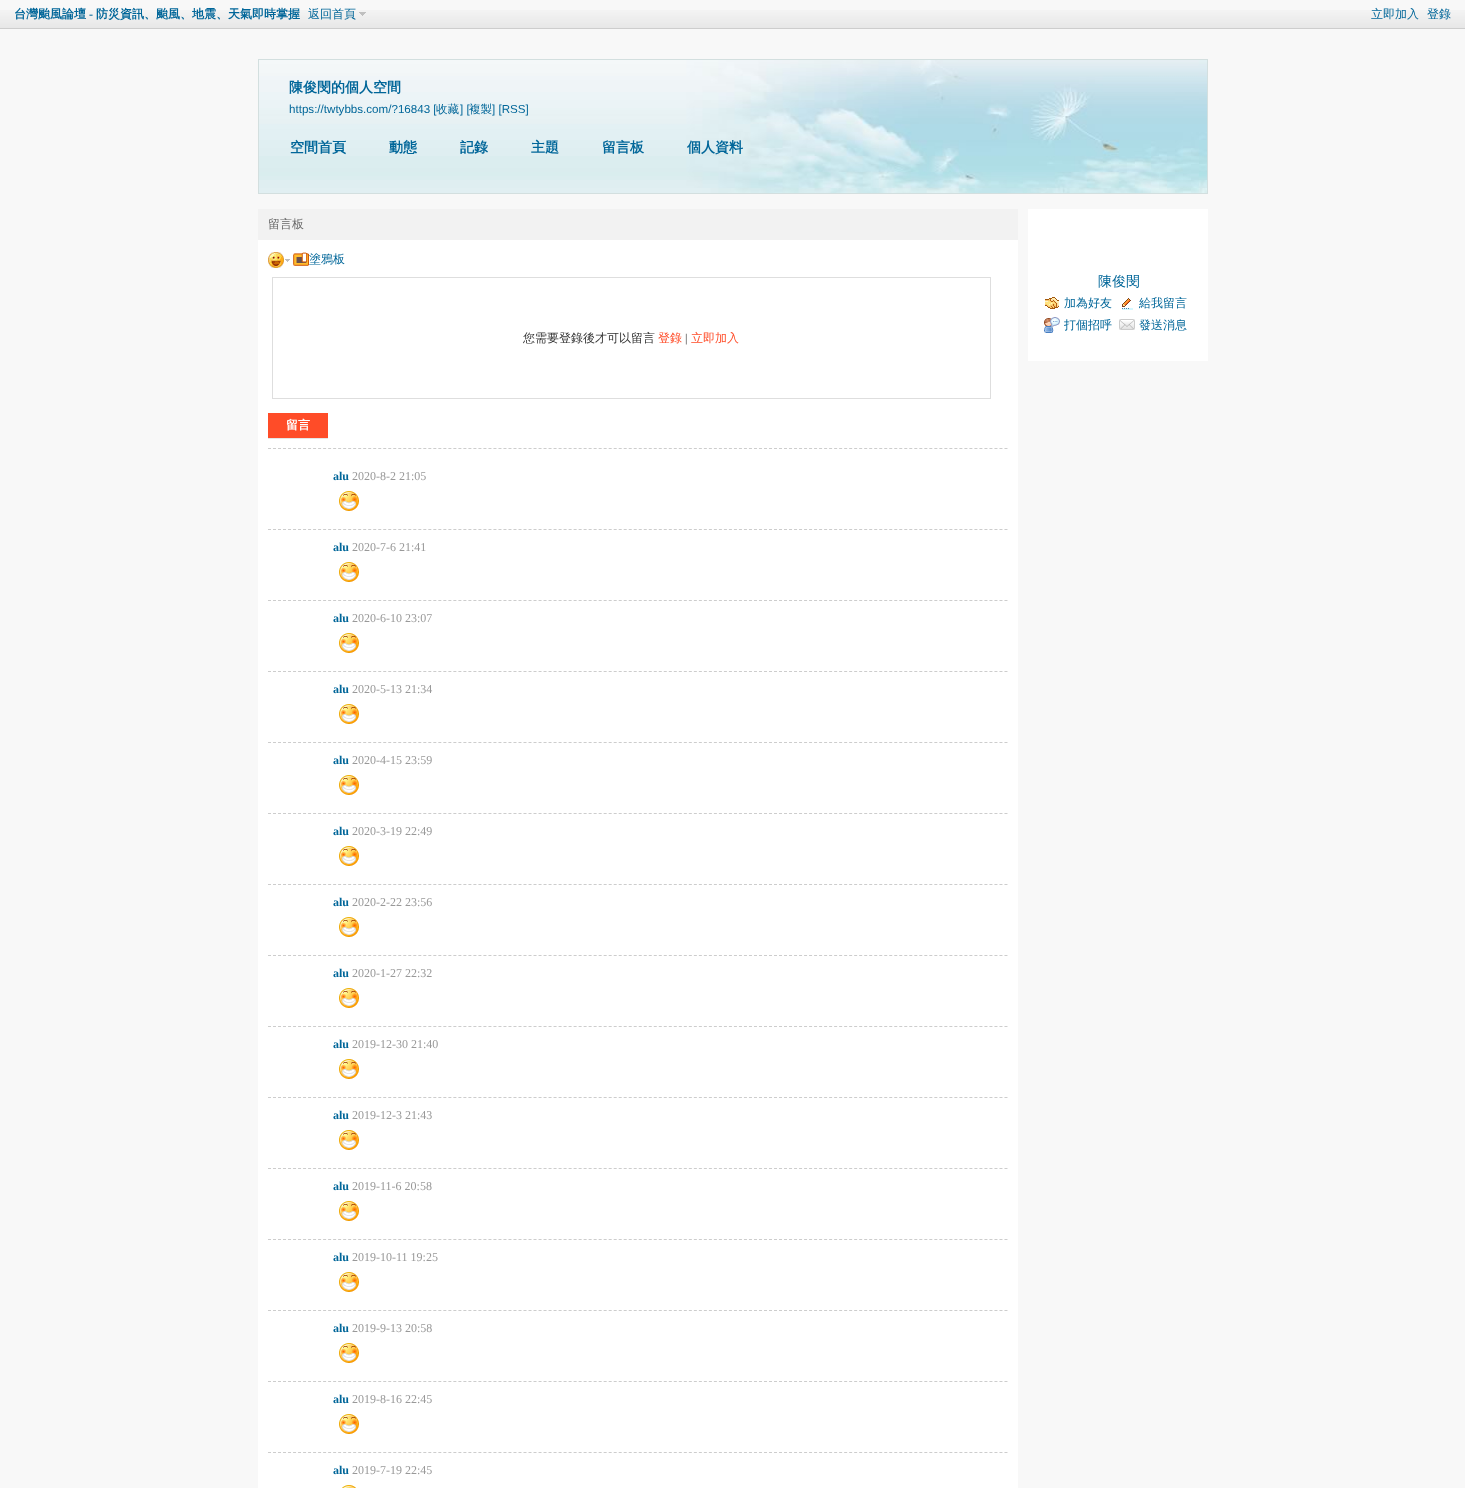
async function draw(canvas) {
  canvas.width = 1465;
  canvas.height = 1488;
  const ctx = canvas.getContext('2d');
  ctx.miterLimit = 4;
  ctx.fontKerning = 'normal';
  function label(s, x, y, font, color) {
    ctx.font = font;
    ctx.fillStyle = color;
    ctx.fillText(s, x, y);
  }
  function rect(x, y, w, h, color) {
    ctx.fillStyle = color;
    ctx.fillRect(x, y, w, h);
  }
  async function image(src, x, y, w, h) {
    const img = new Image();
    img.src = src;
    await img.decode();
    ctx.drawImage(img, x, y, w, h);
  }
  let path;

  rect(0, 0, 1465, 1488, '#f8f8f8');
  await image('assets/img1.png', 0, 10, 1465, 18);
  rect(0, 28, 1465, 1, '#cdcdcd');
  label('台灣颱風論壇', 14, 18, 'bold 12px WenQuanYi Zen Hei', '#069');
  label('-', 89, 18, 'bold 12px Liberation Serif', '#069');
  label('防災資訊、颱風、地震、天氣即時掌握', 96, 18, 'bold 12px WenQuanYi Zen Hei', '#069');
  await image('assets/img2.png', 359, 12, 7, 4);
  label('返回首頁', 308, 18, '500 12px WenQuanYi Zen Hei', '#069');
  label('立即加入', 1371, 18, '500 12px WenQuanYi Zen Hei', '#069');
  label('登錄', 1427, 18, '500 12px WenQuanYi Zen Hei', '#069');
  await image('assets/img3.png', 259, 60, 948, 133);
  ctx.strokeStyle = '#d3dfdf';
  ctx.strokeRect(258.5, 59.5, 949, 134);
  label('陳俊閔的個人空間', 289, 92, 'bold 14px WenQuanYi Zen Hei', '#069');
  label('https://twtybbs.com/?16843 [', 289, 113, '11.6px Liberation Sans', '#069');
  label('收藏', 436, 113, '500 11.6px WenQuanYi Zen Hei', '#069');
  label('] [', 460, 113, '11.6px Liberation Sans', '#069');
  label('複製', 469, 113, '500 11.6px WenQuanYi Zen Hei', '#069');
  label('] [RSS]', 492, 113, '11.6px Liberation Sans', '#069');
  label('空間首頁', 290, 152, 'bold 14px WenQuanYi Zen Hei', '#069');
  label('動態', 389, 152, 'bold 14px WenQuanYi Zen Hei', '#069');
  label('記錄', 460, 152, 'bold 14px WenQuanYi Zen Hei', '#069');
  label('主題', 531, 152, 'bold 14px WenQuanYi Zen Hei', '#069');
  label('留言板', 602, 152, 'bold 14px WenQuanYi Zen Hei', '#069');
  label('個人資料', 687, 152, 'bold 14px WenQuanYi Zen Hei', '#069');
  rect(258, 240, 760, 1248, '#fff');
  rect(258, 209, 760, 31, '#f2f2f2');
  label('留言板', 268, 228, '500 12px WenQuanYi Zen Hei', '#696969');
  await image('assets/img4.png', 268, 252, 22, 16);
  await image('assets/img5.png', 293, 252, 16, 14);
  label('塗鴉板', 309, 263, '500 12px WenQuanYi Zen Hei', '#069');
  ctx.strokeStyle = '#dedede';
  ctx.strokeRect(272.5, 277.5, 718, 121);
  label('您需要登錄後才可以留言', 523, 342, '500 12px WenQuanYi Zen Hei', '#333');
  label('登錄', 658, 342, '500 12px WenQuanYi Zen Hei', '#ff4c28');
  label('|', 685, 342, '12px Liberation Serif', '#333');
  label('立即加入', 691, 342, '500 12px WenQuanYi Zen Hei', '#ff4c28');
  rect(268, 438, 60, 1, '#e5e5e5');
  rect(268, 413, 60, 25, '#ff4c28');
  label('留言', 286, 429, 'bold 12px WenQuanYi Zen Hei', '#fff');
  path = new Path2D('M268 448.5H1008');
  ctx.strokeStyle = '#cdcdcd';
  ctx.setLineDash([3, 2.01]);
  ctx.stroke(path);
  path = new Path2D('M268 529.5H1008');
  ctx.stroke(path);
  label('alu', 333, 480, 'bold 12px Liberation Serif', '#069');
  label('2020-8-2 21:05', 352, 480, '12px Liberation Serif', '#999');
  await image('assets/img6.png', 339, 491, 20, 20);
  path = new Path2D('M268 600.5H1008');
  ctx.stroke(path);
  label('alu', 333, 551, 'bold 12px Liberation Serif', '#069');
  label('2020-7-6 21:41', 352, 551, '12px Liberation Serif', '#999');
  await image('assets/img6.png', 339, 562, 20, 20);
  path = new Path2D('M268 671.5H1008');
  ctx.stroke(path);
  label('alu', 333, 622, 'bold 12px Liberation Serif', '#069');
  label('2020-6-10 23:07', 352, 622, '12px Liberation Serif', '#999');
  await image('assets/img6.png', 339, 633, 20, 20);
  path = new Path2D('M268 742.5H1008');
  ctx.stroke(path);
  label('alu', 333, 693, 'bold 12px Liberation Serif', '#069');
  label('2020-5-13 21:34', 352, 693, '12px Liberation Serif', '#999');
  await image('assets/img6.png', 339, 704, 20, 20);
  path = new Path2D('M268 813.5H1008');
  ctx.stroke(path);
  label('alu', 333, 764, 'bold 12px Liberation Serif', '#069');
  label('2020-4-15 23:59', 352, 764, '12px Liberation Serif', '#999');
  await image('assets/img6.png', 339, 775, 20, 20);
  path = new Path2D('M268 884.5H1008');
  ctx.stroke(path);
  label('alu', 333, 835, 'bold 12px Liberation Serif', '#069');
  label('2020-3-19 22:49', 352, 835, '12px Liberation Serif', '#999');
  await image('assets/img6.png', 339, 846, 20, 20);
  path = new Path2D('M268 955.5H1008');
  ctx.stroke(path);
  label('alu', 333, 906, 'bold 12px Liberation Serif', '#069');
  label('2020-2-22 23:56', 352, 906, '12px Liberation Serif', '#999');
  await image('assets/img6.png', 339, 917, 20, 20);
  path = new Path2D('M268 1026.5H1008');
  ctx.stroke(path);
  label('alu', 333, 977, 'bold 12px Liberation Serif', '#069');
  label('2020-1-27 22:32', 352, 977, '12px Liberation Serif', '#999');
  await image('assets/img6.png', 339, 988, 20, 20);
  path = new Path2D('M268 1097.5H1008');
  ctx.stroke(path);
  label('alu', 333, 1048, 'bold 12px Liberation Serif', '#069');
  label('2019-12-30 21:40', 352, 1048, '12px Liberation Serif', '#999');
  await image('assets/img6.png', 339, 1059, 20, 20);
  path = new Path2D('M268 1168.5H1008');
  ctx.stroke(path);
  label('alu', 333, 1119, 'bold 12px Liberation Serif', '#069');
  label('2019-12-3 21:43', 352, 1119, '12px Liberation Serif', '#999');
  await image('assets/img6.png', 339, 1130, 20, 20);
  path = new Path2D('M268 1239.5H1008');
  ctx.stroke(path);
  label('alu', 333, 1190, 'bold 12px Liberation Serif', '#069');
  label('2019-11-6 20:58', 352, 1190, '12px Liberation Serif', '#999');
  await image('assets/img6.png', 339, 1201, 20, 20);
  path = new Path2D('M268 1310.5H1008');
  ctx.stroke(path);
  label('alu', 333, 1261, 'bold 12px Liberation Serif', '#069');
  label('2019-10-11 19:25', 352, 1261, '12px Liberation Serif', '#999');
  await image('assets/img6.png', 339, 1272, 20, 20);
  path = new Path2D('M268 1381.5H1008');
  ctx.stroke(path);
  label('alu', 333, 1332, 'bold 12px Liberation Serif', '#069');
  label('2019-9-13 20:58', 352, 1332, '12px Liberation Serif', '#999');
  await image('assets/img6.png', 339, 1343, 20, 20);
  path = new Path2D('M268 1452.5H1008');
  ctx.stroke(path);
  label('alu', 333, 1403, 'bold 12px Liberation Serif', '#069');
  label('2019-8-16 22:45', 352, 1403, '12px Liberation Serif', '#999');
  await image('assets/img6.png', 339, 1414, 20, 20);
  label('alu', 333, 1474, 'bold 12px Liberation Serif', '#069');
  label('2019-7-19 22:45', 352, 1474, '12px Liberation Serif', '#999');
  await image('assets/img7.png', 342, 1485, 14, 3);
  rect(1028, 209, 180, 152, '#fff');
  label('陳俊閔', 1098, 286, '500 14px WenQuanYi Zen Hei', '#069');
  await image('assets/img8.png', 1045, 297, 14, 12);
  label('加為好友', 1064, 307, '500 12px WenQuanYi Zen Hei', '#069');
  await image('assets/img9.png', 1122, 298, 11, 12);
  label('給我留言', 1139, 307, '500 12px WenQuanYi Zen Hei', '#069');
  await image('assets/img10.png', 1044, 317, 16, 16);
  label('打個招呼', 1064, 329, '500 12px WenQuanYi Zen Hei', '#069');
  await image('assets/img11.png', 1119, 319, 16, 11);
  label('發送消息', 1139, 329, '500 12px WenQuanYi Zen Hei', '#069');
}

draw(document.querySelector('canvas'));
